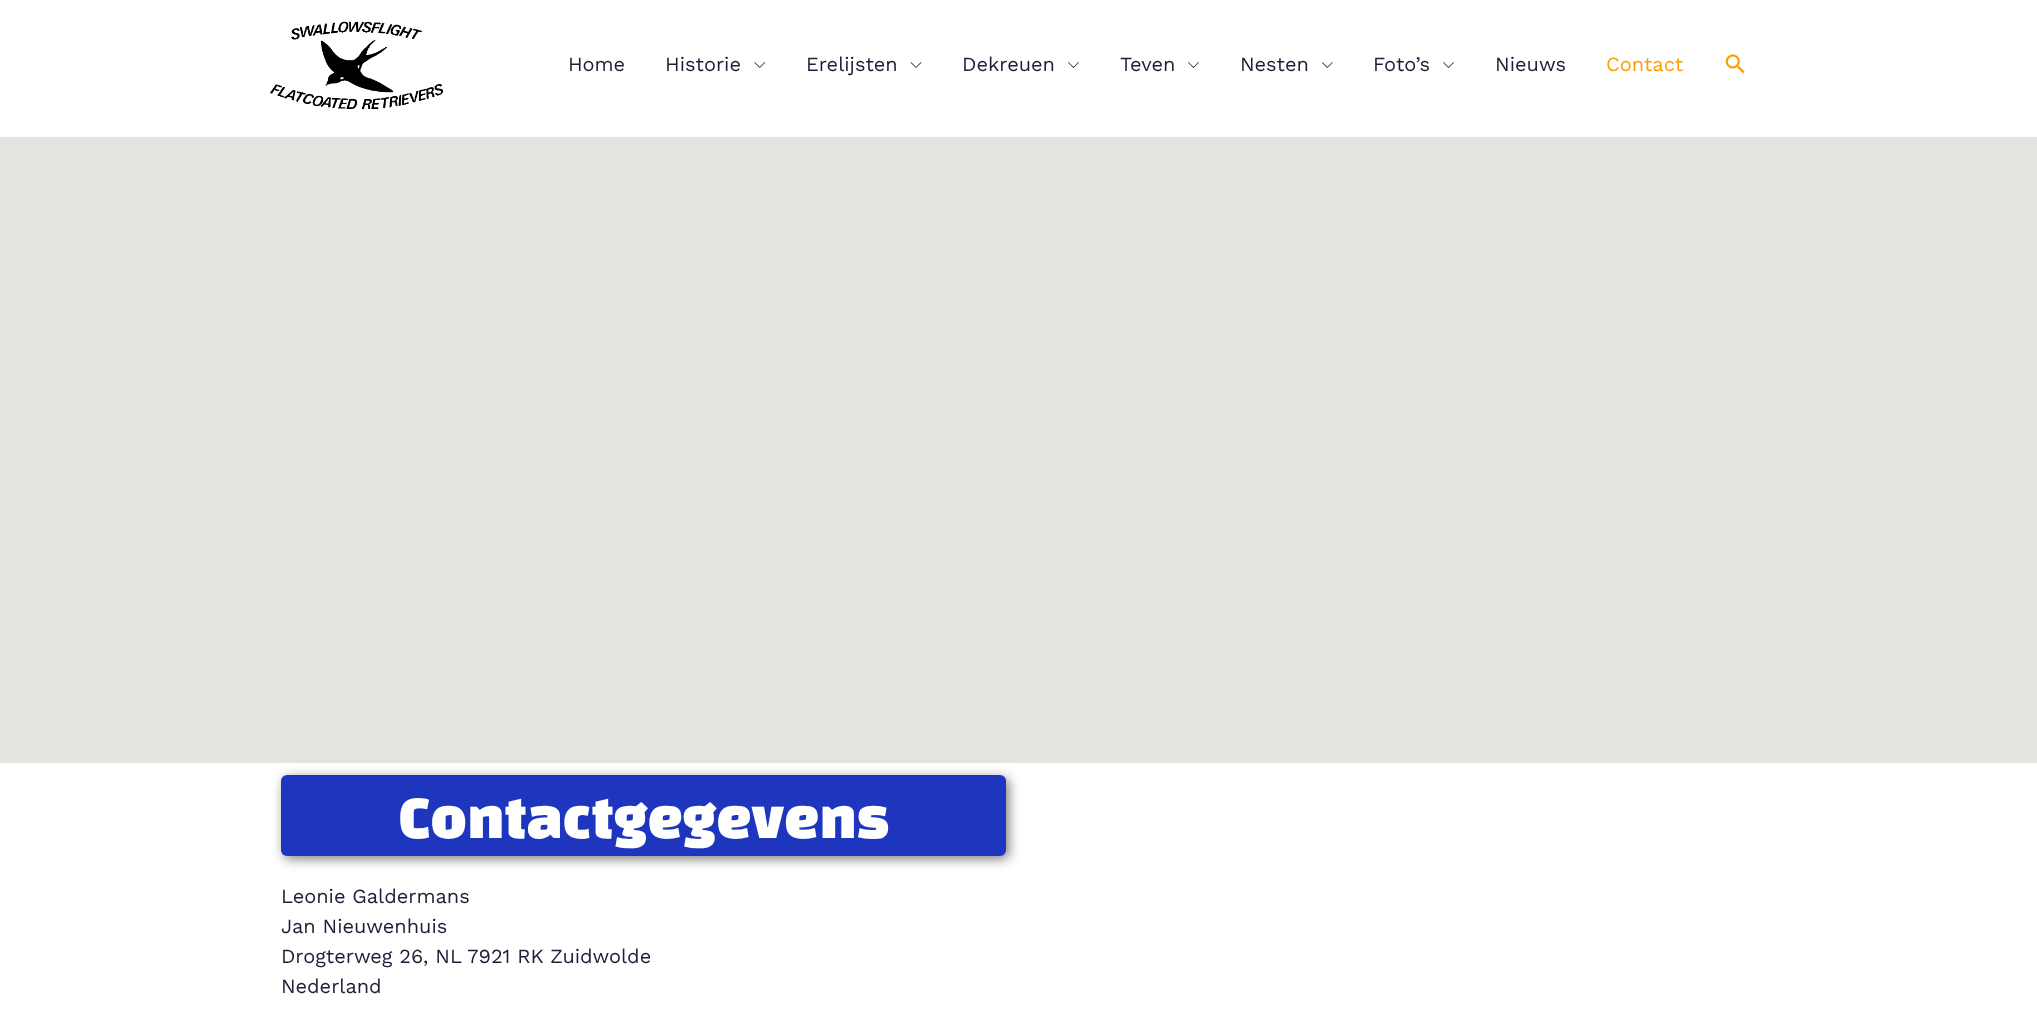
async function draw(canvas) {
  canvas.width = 2037;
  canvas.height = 1018;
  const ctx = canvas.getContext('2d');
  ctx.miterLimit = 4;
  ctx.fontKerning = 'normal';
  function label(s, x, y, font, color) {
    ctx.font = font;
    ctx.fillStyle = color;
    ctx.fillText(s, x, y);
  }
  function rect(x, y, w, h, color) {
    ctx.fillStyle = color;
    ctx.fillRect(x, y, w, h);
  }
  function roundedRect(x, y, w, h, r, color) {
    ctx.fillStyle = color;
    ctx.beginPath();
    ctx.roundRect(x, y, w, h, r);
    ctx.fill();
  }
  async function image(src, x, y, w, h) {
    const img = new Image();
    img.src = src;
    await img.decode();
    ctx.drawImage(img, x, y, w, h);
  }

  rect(0, 0, 2037, 1018, '#fff');
  await image('assets/img1.png', 270, 21, 173, 88);
  label('Home', 568, 71, '20px Work Sans', '#261a36');
  label('Historie', 665, 71, '20px Work Sans', '#261a36');
  await image('assets/img2.png', 754, 62, 12, 6);
  label('Erelijsten', 806, 71, '20px Work Sans', '#261a36');
  await image('assets/img3.png', 910, 62, 12, 6);
  label('Dekreuen', 962, 71, '20px Work Sans', '#261a36');
  await image('assets/img4.png', 1068, 62, 11, 6);
  label('Teven', 1120, 71, '20px Work Sans', '#261a36');
  await image('assets/img4.png', 1188, 62, 11, 6);
  label('Nesten', 1240, 71, '20px Work Sans', '#261a36');
  await image('assets/img5.png', 1321, 62, 12, 6);
  label('Foto’s', 1373, 71, '20px Work Sans', '#261a36');
  await image('assets/img4.png', 1443, 62, 11, 6);
  label('Nieuws', 1495, 71, '20px Work Sans', '#261a36');
  label('Contact', 1606, 71, '20px Work Sans', '#ff9c00');
  await image('assets/img6.png', 1725, 54, 20, 20);
  rect(0, 137, 2037, 626, '#e5e3df');
  ctx.fillStyle = '#00000080';
  ctx.filter = 'blur(6px)';
  ctx.beginPath();
  ctx.roundRect(284, 778, 725, 81, 6);
  ctx.fill();
  ctx.filter = 'none';
  roundedRect(281, 775, 725, 81, 6, '#1e36be');
  label('Contactgegevens', 399, 838, '62.5px Changa One', '#fff');
  label('Leonie Galdermans', 281, 903, '20px Work Sans', '#261a36');
  label('Jan Nieuwenhuis', 281, 933, '20px Work Sans', '#261a36');
  label('Drogterweg 26, NL 7921 RK Zuidwolde', 281, 963, '20px Work Sans', '#261a36');
  label('Nederland', 281, 993, '20px Work Sans', '#261a36');
}

draw(document.querySelector('canvas'));
